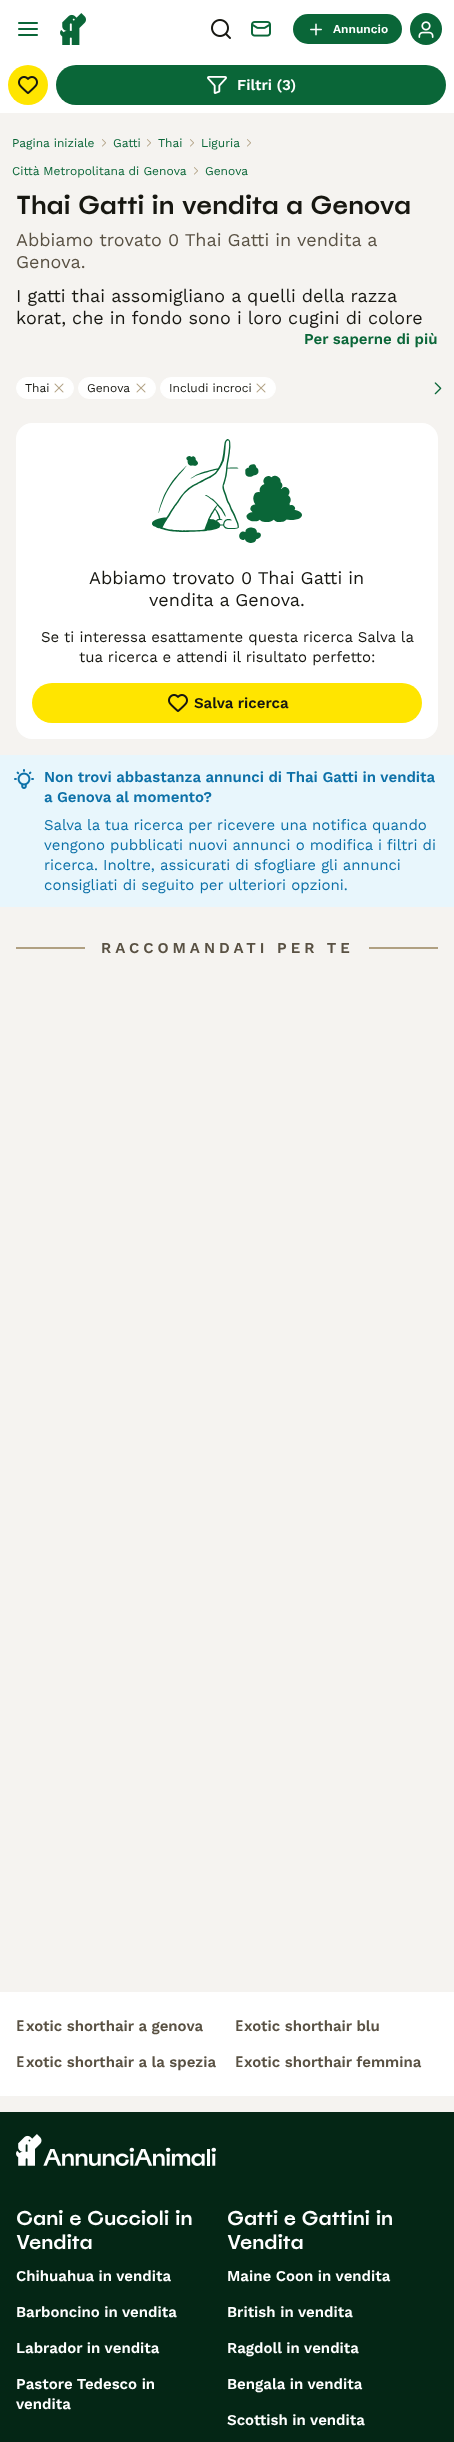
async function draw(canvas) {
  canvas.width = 454;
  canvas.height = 2442;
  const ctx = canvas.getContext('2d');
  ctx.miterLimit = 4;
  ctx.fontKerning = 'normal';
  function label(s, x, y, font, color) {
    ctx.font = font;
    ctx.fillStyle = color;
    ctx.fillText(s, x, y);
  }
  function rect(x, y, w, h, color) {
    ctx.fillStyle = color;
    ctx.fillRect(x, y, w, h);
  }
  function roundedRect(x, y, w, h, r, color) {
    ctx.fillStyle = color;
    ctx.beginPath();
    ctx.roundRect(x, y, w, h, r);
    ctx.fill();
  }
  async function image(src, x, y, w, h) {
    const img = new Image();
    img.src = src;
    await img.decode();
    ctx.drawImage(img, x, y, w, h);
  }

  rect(0, 0, 454, 2442, '#f5f3f0');
  rect(0, 0, 454, 113, '#fff');
  await image('assets/img1.png', 18, 22, 20, 14);
  await image('assets/img2.png', 60, 13, 26, 32);
  await image('assets/img3.png', 211, 19, 20, 20);
  await image('assets/img4.png', 251, 21, 20, 16);
  roundedRect(293, 14, 109, 30, 15, '#0a6638');
  await image('assets/img5.png', 310, 23, 12, 13);
  label('Annuncio', 333, 33, '600 12px Work Sans', '#fff');
  ctx.fillStyle = '#0a6638';
  ctx.beginPath();
  ctx.arc(426, 29, 16, 0, 2 * Math.PI);
  ctx.fill();
  await image('assets/img6.png', 418, 21, 16, 17);
  ctx.fillStyle = '#ffe500';
  ctx.beginPath();
  ctx.arc(28, 85, 20, 0, 2 * Math.PI);
  ctx.fill();
  await image('assets/img7.png', 18, 76, 20, 18);
  roundedRect(56, 65, 390, 40, 20, '#0a6638');
  await image('assets/img8.png', 207, 76, 20, 18);
  label('Filtri (3)', 237, 90, '600 15px Work Sans', '#fff');
  label('Pagina iniziale', 12, 147, '12px Work Sans', '#0a6638');
  await image('assets/img9.png', 102, 139, 4, 8);
  label('Gatti', 113, 147, '12px Work Sans', '#0a6638');
  await image('assets/img9.png', 147, 139, 4, 8);
  label('Thai', 158, 147, '12px Work Sans', '#0a6638');
  await image('assets/img9.png', 190, 139, 4, 8);
  label('Liguria', 201, 147, '12px Work Sans', '#0a6638');
  await image('assets/img9.png', 247, 139, 4, 8);
  label('Città Metropolitana di Genova', 12, 175, '12px Work Sans', '#0a6638');
  await image('assets/img9.png', 194, 167, 4, 8);
  label('Genova', 205, 175, '12px Work Sans', '#0a6638');
  label('Thai Gatti in vendita a Genova', 16, 214, '500 26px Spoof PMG', '#171711');
  label('Abbiamo trovato 0 Thai Gatti in vendita a', 16, 246, '18px Work Sans', '#595143');
  label('Genova.', 16, 268, '18px Work Sans', '#595143');
  label('I gatti thai assomigliano a quelli della razza', 16, 302, '18px Work Sans', '#171711');
  label('korat, che in fondo sono i loro cugini di colore', 16, 324, '18px Work Sans', '#171711');
  label('Per saperne di più', 304, 344, '600 15px Work Sans', '#0a6638');
  ctx.fillStyle = '#fff';
  ctx.beginPath();
  ctx.roundRect(16.5, 377.5, 57, 21, 10.5);
  ctx.fill();
  ctx.strokeStyle = '#fff';
  ctx.stroke();
  label('Thai', 25, 392, '12px Work Sans', '#171711');
  await image('assets/img10.png', 54, 383, 10, 10);
  ctx.fillStyle = '#fff';
  ctx.beginPath();
  ctx.roundRect(78.5, 377.5, 77, 21, 10.5);
  ctx.fill();
  ctx.stroke();
  label('Genova', 87, 392, '12px Work Sans', '#171711');
  await image('assets/img10.png', 136, 383, 10, 10);
  ctx.fillStyle = '#fff';
  ctx.beginPath();
  ctx.roundRect(160.5, 377.5, 115, 21, 10.5);
  ctx.fill();
  ctx.stroke();
  label('Includi incroci', 169, 392, '12px Work Sans', '#171711');
  await image('assets/img10.png', 256, 383, 10, 10);
  await image('assets/img11.png', 434, 382, 8, 13);
  roundedRect(16, 423, 422, 316, 16, '#fff');
  await image('assets/img12.png', 152, 439, 150, 104);
  label('Abbiamo trovato 0 Thai Gatti in', 89, 584, '18px Work Sans', '#171711');
  label('vendita a Genova.', 149, 606, '18px Work Sans', '#171711');
  label('Se ti interessa esattamente questa ricerca Salva la', 41, 642, '15px Work Sans', '#171711');
  label('tua ricerca e attendi il risultato perfetto:', 79, 662, '15px Work Sans', '#171711');
  roundedRect(32, 683, 390, 40, 20, '#ffe500');
  await image('assets/img7.png', 168, 694, 20, 18);
  label('Salva ricerca', 194, 708, '600 15px Work Sans', '#171711');
  rect(0, 755, 454, 152, '#e8f6fc');
  await image('assets/img13.png', 14, 769, 20, 20);
  label('Non trovi abbastanza annunci di Thai Gatti in vendita', 44, 782, '600 15px Work Sans', '#0d71a8');
  label('a Genova al momento?', 44, 802, '600 15px Work Sans', '#0d71a8');
  label('Salva la tua ricerca per ricevere una notifica quando', 44, 830, '15px Work Sans', '#0d71a8');
  label('vengono pubblicati nuovi annunci o modifica i filtri di', 44, 850, '15px Work Sans', '#0d71a8');
  label('ricerca. Inoltre, assicurati di sfogliare gli annunci', 44, 870, '15px Work Sans', '#0d71a8');
  label('consigliati di seguito per ulteriori opzioni.', 44, 890, '15px Work Sans', '#0d71a8');
  rect(16, 947, 422, 2, '#b0a082');
  rect(85, 947, 284, 2, '#f5f3f0');
  ctx.letterSpacing = '4px';
  label('RACCOMANDATI PER TE', 101, 953, '600 15px Work Sans', '#595143');
  rect(0, 1992, 454, 104, '#fff');
  ctx.letterSpacing = '0px';
  label('E', 16, 2031, '600 15px Noto Sans', '#595143');
  label('xotic shorthair a genova', 26, 2031, '600 15px Work Sans', '#595143');
  label('E', 235, 2031, '600 15px Noto Sans', '#595143');
  label('xotic shorthair blu', 244, 2031, '600 15px Work Sans', '#595143');
  label('E', 16, 2067, '600 15px Noto Sans', '#595143');
  label('xotic shorthair a la spezia', 26, 2067, '600 15px Work Sans', '#595143');
  label('E', 235, 2067, '600 15px Noto Sans', '#595143');
  label('xotic shorthair femmina', 244, 2067, '600 15px Work Sans', '#595143');
  rect(0, 2112, 454, 330, '#042615');
  await image('assets/img14.png', 16, 2134, 200, 32);
  label('Cani e Cuccioli in', 16, 2225, '500 20px Spoof PMG', '#fff');
  label('Vendita', 16, 2249, '500 20px Spoof PMG', '#fff');
  label('Chihuahua in vendita', 16, 2281, '600 15px Work Sans', '#fff');
  label('Barboncino in vendita', 16, 2317, '600 15px Work Sans', '#fff');
  label('Labrador in vendita', 16, 2353, '600 15px Work Sans', '#fff');
  label('Pastore Tedesco in', 16, 2389, '600 15px Work Sans', '#fff');
  label('vendita', 16, 2409, '600 15px Work Sans', '#fff');
  label('Gatti e Gattini in', 227, 2225, '500 20px Spoof PMG', '#fff');
  label('Vendita', 227, 2249, '500 20px Spoof PMG', '#fff');
  label('Maine Coon in vendita', 227, 2281, '600 15px Work Sans', '#fff');
  label('British in vendita', 227, 2317, '600 15px Work Sans', '#fff');
  label('Ragdoll in vendita', 227, 2353, '600 15px Work Sans', '#fff');
  label('Bengala in vendita', 227, 2389, '600 15px Work Sans', '#fff');
  label('Scottish in vendita', 227, 2425, '600 15px Work Sans', '#fff');
}

draw(document.querySelector('canvas'));
